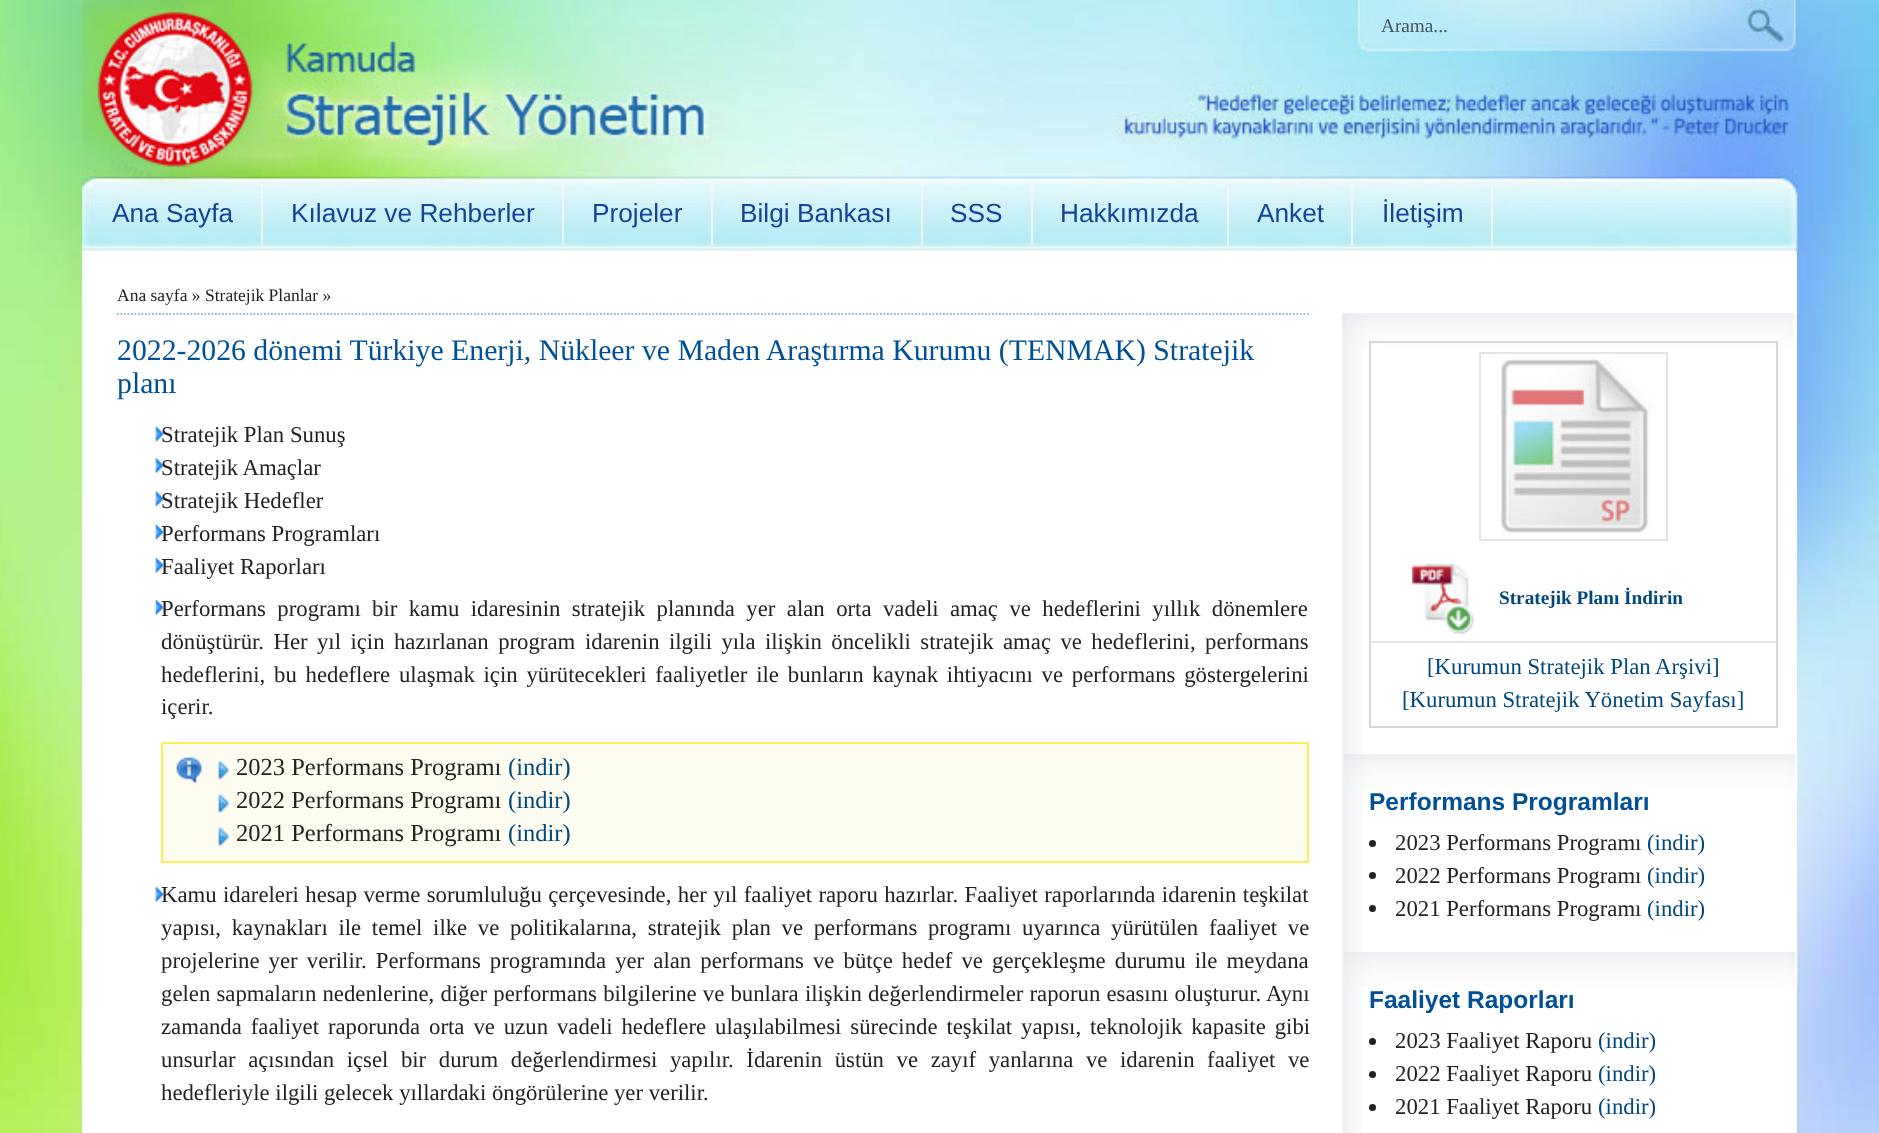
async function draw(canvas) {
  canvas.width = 1879;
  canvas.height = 1133;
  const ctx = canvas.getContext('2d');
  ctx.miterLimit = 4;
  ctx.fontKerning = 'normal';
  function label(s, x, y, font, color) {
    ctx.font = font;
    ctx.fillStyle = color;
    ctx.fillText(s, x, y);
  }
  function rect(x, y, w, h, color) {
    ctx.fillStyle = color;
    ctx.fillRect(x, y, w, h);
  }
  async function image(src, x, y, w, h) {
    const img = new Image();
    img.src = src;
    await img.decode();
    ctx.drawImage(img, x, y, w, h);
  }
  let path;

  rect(0, 0, 1879, 1133, '#fff');
  await image('assets/img1.png', 0, 0, 1879, 1133);
  await image('assets/img2.png', 82, 0, 1716, 252);
  rect(82, 252, 1715, 881, '#fff');
  label('Arama...', 1381, 32, '19.25px Liberation Serif', '#455360');
  rect(261, 180, 2, 65, '#f2f4f7');
  label('Ana Sayfa', 112, 222, '26.25px Liberation Sans', '#134497');
  rect(562, 180, 2, 65, '#f2f4f7');
  label('Kılavuz ve Rehberler', 291, 222, '26.25px Liberation Sans', '#134497');
  rect(711, 180, 2, 65, '#f2f4f7');
  label('Projeler', 592, 222, '26.25px Liberation Sans', '#134497');
  rect(921, 180, 2, 65, '#f2f4f7');
  label('Bilgi Bankası', 740, 222, '26.25px Liberation Sans', '#134497');
  rect(1031, 180, 2, 65, '#f2f4f7');
  label('SSS', 950, 222, '26.25px Liberation Sans', '#134497');
  rect(1227, 180, 2, 65, '#f2f4f7');
  label('Hakkımızda', 1060, 222, '26.25px Liberation Sans', '#134497');
  rect(1351, 180, 2, 65, '#f2f4f7');
  label('Anket', 1257, 222, '26.25px Liberation Sans', '#134497');
  rect(1491, 180, 2, 65, '#f2f4f7');
  label('İletişim', 1382, 222, '26.25px Liberation Sans', '#134497');
  path = new Path2D('M117 314H1309');
  ctx.strokeStyle = '#93bddb';
  ctx.lineWidth = 1.8;
  ctx.setLineDash([1.75, 1.75]);
  ctx.stroke(path);
  label('Ana sayfa » Stratejik Planlar »', 117, 301, '17.5px Liberation Serif', '#222');
  label('2022-2026 dönemi Türkiye Enerji, Nükleer ve Maden Araştırma Kurumu (TENMAK) Stratejik', 117, 360, '29.75px Liberation Serif', '#005098');
  label('planı', 117, 393, '29.75px Liberation Serif', '#005098');
  await image('assets/img3.png', 155, 426, 9, 16);
  label('Stratejik Plan Sunuş', 161, 442, '22.75px Liberation Serif', '#222');
  await image('assets/img4.png', 155, 458, 9, 15);
  label('Stratejik Amaçlar', 161, 475, '22.75px Liberation Serif', '#222');
  await image('assets/img5.png', 155, 491, 9, 16);
  label('Stratejik Hedefler', 161, 508, '22.75px Liberation Serif', '#222');
  await image('assets/img3.png', 155, 524, 9, 16);
  label('Performans Programları', 161, 541, '22.75px Liberation Serif', '#222');
  await image('assets/img6.png', 155, 557, 9, 16);
  label('Faaliyet Raporları', 161, 574, '22.75px Liberation Serif', '#222');
  await image('assets/img6.png', 155, 599, 9, 16);
  ctx.wordSpacing = '5.75px';
  label('Performans programı', 161, 616, '22.75px Liberation Serif', '#222');
  label('bir kamu idaresinin stratejik planında yer alan orta vadeli amaç ve hedeflerini yıllık dönemlere', 372, 616, '22.75px Liberation Serif', '#222');
  ctx.wordSpacing = '3.75px';
  label('dönüştürür. Her yıl için hazırlanan program', 161, 649, '22.75px Liberation Serif', '#222');
  label('idarenin ilgili yıla ilişkin öncelikli stratejik amaç ve hedeflerini, performans', 585, 649, '22.75px Liberation Serif', '#222');
  ctx.wordSpacing = '3.1px';
  label('hedeflerini, bu hedeflere ulaşmak için yürütecekleri faaliyetler ile bunların kaynak ihtiyacını ve performans göstergelerini', 161, 682, '22.75px Liberation Serif', '#222');
  ctx.wordSpacing = '0px';
  label('içerir.', 161, 714, '22.75px Liberation Serif', '#222');
  rect(163, 744, 1144, 117, '#fdfcf1');
  await image('assets/img7.png', 176, 757, 26, 26);
  ctx.strokeStyle = '#feee57';
  ctx.lineWidth = 2;
  ctx.setLineDash([]);
  ctx.strokeRect(162, 743, 1146, 119);
  await image('assets/img8.png', 218, 760, 12, 20);
  label('2023 Performans Programı', 236, 775, '24.5px Liberation Serif', '#222');
  label('(indir)', 508, 775, '24.5px Liberation Serif', '#00477b');
  await image('assets/img9.png', 218, 794, 12, 19);
  label('2022 Performans Programı', 236, 808, '24.5px Liberation Serif', '#222');
  label('(indir)', 508, 808, '24.5px Liberation Serif', '#00477b');
  await image('assets/img10.png', 218, 827, 12, 19);
  label('2021 Performans Programı', 236, 841, '24.5px Liberation Serif', '#222');
  label('(indir)', 508, 841, '24.5px Liberation Serif', '#00477b');
  await image('assets/img6.png', 155, 886, 9, 16);
  ctx.wordSpacing = '0.75px';
  label('Kamu idareleri hesap verme sorumluluğu çerçevesinde, her yıl faaliyet raporu hazırlar. Faaliyet raporlarında idarenin teşkilat', 161, 902, '22.75px Liberation Serif', '#222');
  ctx.wordSpacing = '5px';
  label('yapısı, kaynakları ile temel ilke ve politikalarına, stratejik plan ve performans programı uyarınca yürütülen faaliyet ve', 161, 935, '22.75px Liberation Serif', '#222');
  ctx.wordSpacing = '3.4px';
  label('projelerine yer verilir. Performans programında yer alan performans ve bütçe hedef ve gerçekleşme durumu ile meydana', 161, 968, '22.75px Liberation Serif', '#222');
  ctx.wordSpacing = '0.5px';
  label('gelen sapmaların nedenlerine, diğer performans bilgilerine ve bunlara ilişkin değerlendirmeler raporun esasını oluşturur. Aynı', 161, 1001, '22.75px Liberation Serif', '#222');
  ctx.wordSpacing = '3.25px';
  label('zamanda faaliyet raporunda orta ve uzun vadeli hedeflere ulaşılabilmesi sürecinde teşkilat yapısı, teknolojik kapasite gibi', 161, 1034, '22.75px Liberation Serif', '#222');
  ctx.wordSpacing = '6.9px';
  label('unsurlar açısından içsel bir durum değerlendirmesi yapılır. İdarenin üstün ve zayıf yanlarına ve idarenin faaliyet ve', 161, 1067, '22.75px Liberation Serif', '#222');
  ctx.wordSpacing = '0px';
  label('hedefleriyle ilgili gelecek yıllardaki öngörülerine yer verilir.', 161, 1100, '22.75px Liberation Serif', '#222');
  await image('assets/img11.png', 1342, 313, 452, 36);
  await image('assets/img12.png', 1342, 348, 20, 785);
  rect(1371, 343, 14, 5, '#fff');
  ctx.strokeStyle = '#d7d7d7';
  ctx.strokeRect(1370, 342, 407, 385);
  ctx.strokeStyle = '#e0e5e9';
  ctx.strokeRect(1480, 353, 187, 187);
  await image('assets/img13.png', 1500, 358, 152, 176);
  await image('assets/img14.png', 1412, 563, 62, 71);
  rect(1370, 641, 406, 2, '#e2e2e2');
  label('Stratejik Planı İndirin', 1499, 604, 'bold 19.25px Liberation Serif', '#00477b');
  label('[Kurumun Stratejik Plan Arşivi]', 1427, 674, '22.75px Liberation Serif', '#00477b');
  label('[Kurumun Stratejik Yönetim Sayfası]', 1402, 707, '22.75px Liberation Serif', '#00477b');
  await image('assets/img15.png', 1344, 754, 454, 35);
  label('Performans Programları', 1369, 810, 'bold 24.5px Liberation Sans', '#005098');
  ctx.fillStyle = '#222';
  ctx.beginPath();
  ctx.arc(1372.5, 843.5, 3.5, 0, 2 * Math.PI);
  ctx.fill();
  label('2023 Performans Programı', 1395, 850, '22.75px Liberation Serif', '#222');
  label('(indir)', 1647, 850, '22.75px Liberation Serif', '#00477b');
  ctx.fillStyle = '#222';
  ctx.beginPath();
  ctx.arc(1372.5, 875.5, 3.5, 0, 2 * Math.PI);
  ctx.fill();
  label('2022 Performans Programı', 1395, 883, '22.75px Liberation Serif', '#222');
  label('(indir)', 1647, 883, '22.75px Liberation Serif', '#00477b');
  ctx.fillStyle = '#222';
  ctx.beginPath();
  ctx.arc(1372.5, 908.5, 3.5, 0, 2 * Math.PI);
  ctx.fill();
  label('2021 Performans Programı', 1395, 916, '22.75px Liberation Serif', '#222');
  label('(indir)', 1647, 916, '22.75px Liberation Serif', '#00477b');
  await image('assets/img16.png', 1344, 952, 454, 35);
  label('Faaliyet Raporları', 1369, 1008, 'bold 24.5px Liberation Sans', '#005098');
  ctx.fillStyle = '#222';
  ctx.beginPath();
  ctx.arc(1372.5, 1041.5, 3.5, 0, 2 * Math.PI);
  ctx.fill();
  label('2023 Faaliyet Raporu', 1395, 1048, '22.75px Liberation Serif', '#222');
  label('(indir)', 1598, 1048, '22.75px Liberation Serif', '#00477b');
  ctx.fillStyle = '#222';
  ctx.beginPath();
  ctx.arc(1372.5, 1074.5, 3.5, 0, 2 * Math.PI);
  ctx.fill();
  label('2022 Faaliyet Raporu', 1395, 1081, '22.75px Liberation Serif', '#222');
  label('(indir)', 1598, 1081, '22.75px Liberation Serif', '#00477b');
  ctx.fillStyle = '#222';
  ctx.beginPath();
  ctx.arc(1372.5, 1107.5, 3.5, 0, 2 * Math.PI);
  ctx.fill();
  label('2021 Faaliyet Raporu', 1395, 1114, '22.75px Liberation Serif', '#222');
  label('(indir)', 1598, 1114, '22.75px Liberation Serif', '#00477b');
}

draw(document.querySelector('canvas'));
